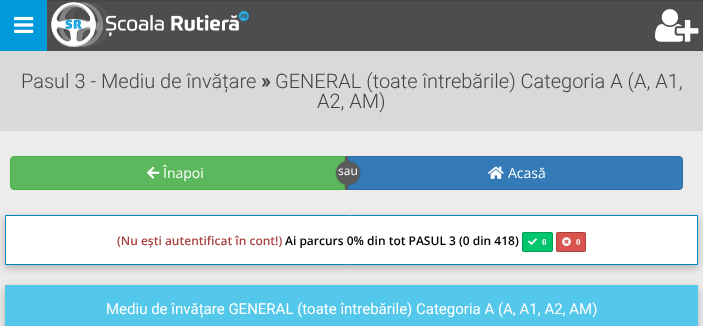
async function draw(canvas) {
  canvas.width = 703;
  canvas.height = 326;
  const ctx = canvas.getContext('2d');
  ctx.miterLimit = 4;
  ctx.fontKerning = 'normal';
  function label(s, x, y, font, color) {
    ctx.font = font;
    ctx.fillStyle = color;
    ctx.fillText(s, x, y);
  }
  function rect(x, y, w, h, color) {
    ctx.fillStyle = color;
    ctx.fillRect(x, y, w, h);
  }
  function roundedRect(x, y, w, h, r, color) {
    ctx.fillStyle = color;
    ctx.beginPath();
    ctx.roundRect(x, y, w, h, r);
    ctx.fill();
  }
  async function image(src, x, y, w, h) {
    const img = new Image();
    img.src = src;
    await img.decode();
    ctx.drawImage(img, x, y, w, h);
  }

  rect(0, 0, 703, 326, '#ececec');
  rect(47, 1, 656, 50, '#4d4d4d');
  rect(47, 0, 656, 1, '#444');
  rect(0, 0, 47, 51, '#0099da');
  await image('assets/img1.png', 14, 16, 20, 17);
  await image('assets/img2.png', 51, 2, 198, 45);
  await image('assets/img3.png', 655, 9, 44, 33);
  rect(0, 51, 703, 80, '#d9d9d9');
  label('Pasul 3 - Mediu de învățare', 21, 88, '300 20px Roboto', '#444');
  label('»', 261, 88, 'bold 20px Roboto', '#444');
  label('GENERAL (toate întrebările) Categoria A (A, A1,', 275, 88, '300 20px Roboto', '#444');
  label('A2, AM)', 317, 108, '300 20px Roboto', '#444');
  ctx.fillStyle = '#5cb85c';
  ctx.beginPath();
  ctx.roundRect(10.5, 156.5, 334, 33, [3.5, 0, 0, 3.5]);
  ctx.fill();
  ctx.strokeStyle = '#4cae4c';
  ctx.stroke();
  await image('assets/img4.png', 147, 166, 13, 13);
  label('Înapoi', 163, 178, '14px Open Sans', '#fff');
  ctx.fillStyle = '#337ab7';
  ctx.beginPath();
  ctx.roundRect(348.5, 156.5, 334, 33, [0, 3.5, 3.5, 0]);
  ctx.fill();
  ctx.strokeStyle = '#2e6da4';
  ctx.stroke();
  ctx.beginPath();
  ctx.arc(348, 173, 12.5, 0, 2 * Math.PI);
  ctx.strokeStyle = '#0000001a';
  ctx.stroke();
  ctx.fillStyle = '#5a5a5a';
  ctx.beginPath();
  ctx.arc(348, 173, 12, 0, 2 * Math.PI);
  ctx.fill();
  rect(345, 156, 3, 7, '#5a5a5a');
  rect(345, 183, 3, 7, '#5a5a5a');
  label('sau', 338, 175, '12px Open Sans', '#fff');
  await image('assets/img5.png', 488, 166, 16, 13);
  label('Acasă', 508, 178, '14px Open Sans', '#fff');
  ctx.fillStyle = '#00000040';
  ctx.filter = 'blur(4px)';
  ctx.beginPath();
  ctx.rect(5, 218, 693, 50);
  ctx.fill();
  ctx.filter = 'none';
  ctx.fillStyle = '#fff';
  ctx.beginPath();
  ctx.rect(5.5, 215.5, 692, 49);
  ctx.fill();
  ctx.strokeStyle = '#0087c1';
  ctx.stroke();
  label('(Nu ești autentificat în cont!)', 117, 245, '600 12px Open Sans', '#a94442');
  label('Ai parcurs 0% din tot PASUL 3 (0 din 418)', 285, 245, '600 12px Open Sans', '#000');
  roundedRect(522, 232, 31, 20, 2, '#02c66c');
  ctx.beginPath();
  ctx.roundRect(522.5, 232.5, 30, 19, 1.5);
  ctx.strokeStyle = '#00000036';
  ctx.stroke();
  await image('assets/img6.png', 528, 238, 9, 7);
  label('0', 542, 245, 'bold 9px Liberation Serif', '#fff');
  roundedRect(556, 232, 30, 20, 2, '#d9534f');
  ctx.beginPath();
  ctx.roundRect(556.5, 232.5, 29, 19, 1.5);
  ctx.stroke();
  await image('assets/img7.png', 562, 237, 9, 9);
  label('0', 576, 245, 'bold 9px Liberation Serif', '#fff');
  ctx.fillStyle = '#00000040';
  ctx.filter = 'blur(4px)';
  ctx.beginPath();
  ctx.rect(5, 288, 693, 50);
  ctx.fill();
  ctx.filter = 'none';
  ctx.strokeStyle = '#54c8eb';
  ctx.strokeRect(5.5, 285.5, 692, 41);
  rect(6, 286, 691, 40, '#54c8eb');
  label('Mediu de învățare GENERAL (toate întrebările) Categoria A (A, A1, A2, AM)', 106, 314, '15px Roboto', '#fff');
}

draw(document.querySelector('canvas'));
